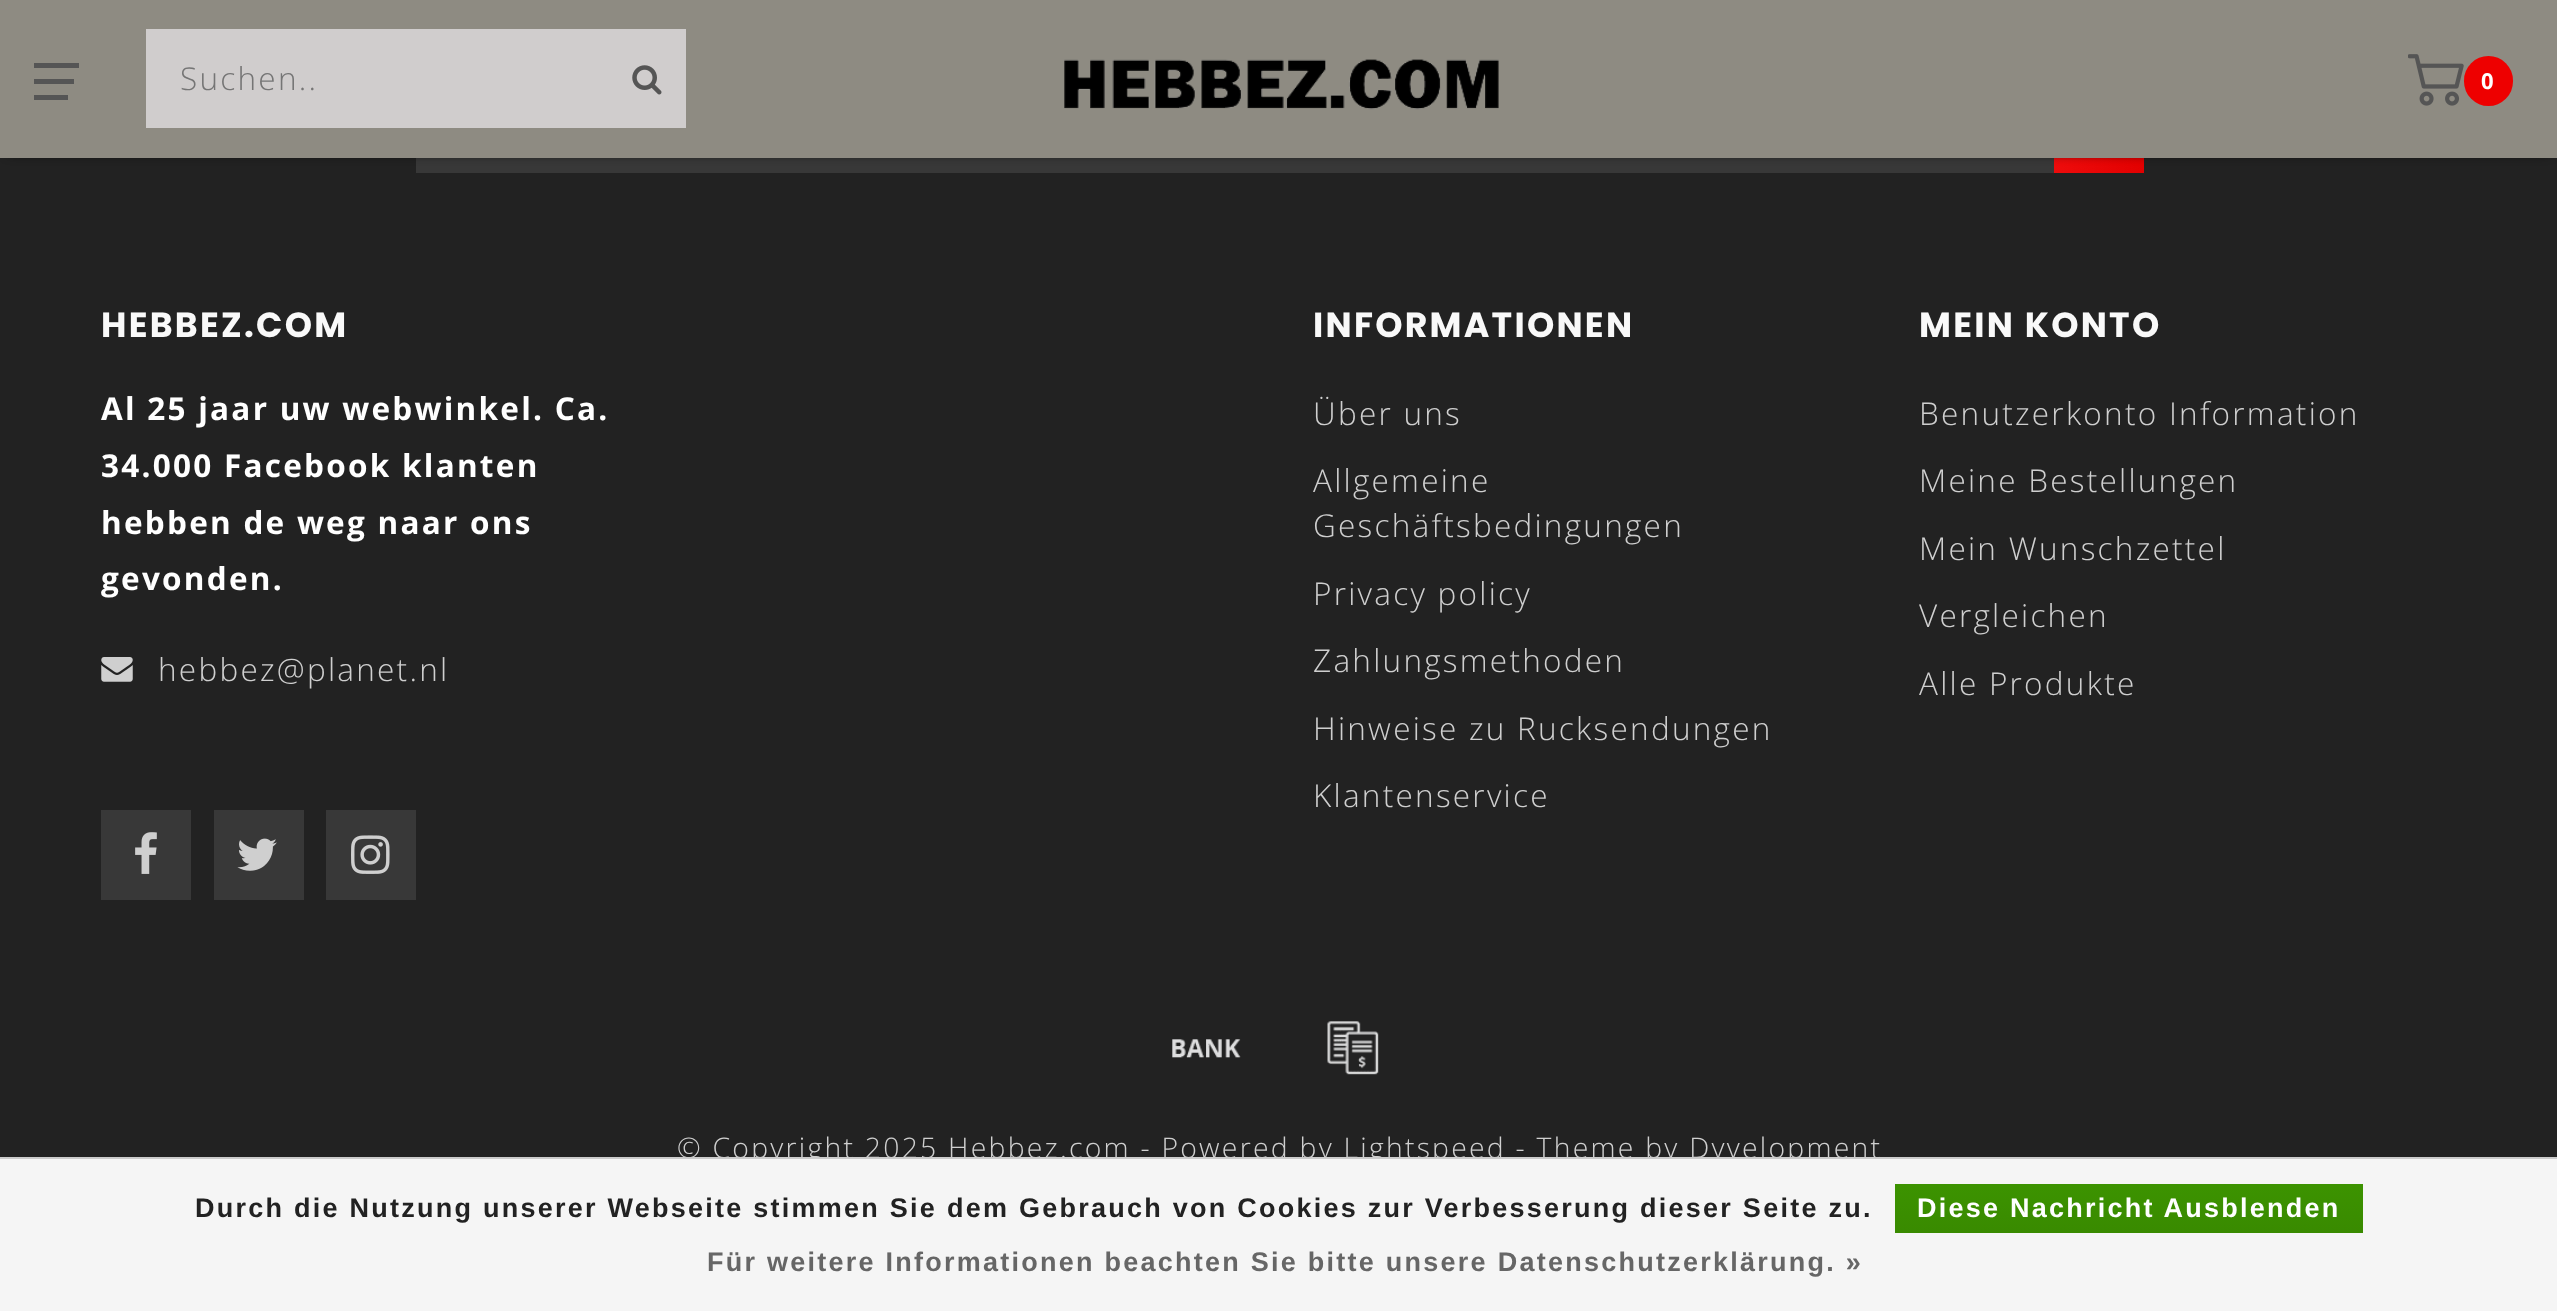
async function draw(canvas) {
  canvas.width = 2557;
  canvas.height = 1311;
  const ctx = canvas.getContext('2d');
  ctx.miterLimit = 4;
  ctx.fontKerning = 'normal';
  function label(s, x, y, font, color) {
    ctx.font = font;
    ctx.fillStyle = color;
    ctx.fillText(s, x, y);
  }
  function rect(x, y, w, h, color) {
    ctx.fillStyle = color;
    ctx.fillRect(x, y, w, h);
  }
  function roundedRect(x, y, w, h, r, color) {
    ctx.fillStyle = color;
    ctx.beginPath();
    ctx.roundRect(x, y, w, h, r);
    ctx.fill();
  }
  async function image(src, x, y, w, h) {
    const img = new Image();
    img.src = src;
    await img.decode();
    ctx.drawImage(img, x, y, w, h);
  }
  let gradient;

  rect(0, 0, 2557, 1311, '#222');
  rect(416, 158, 1638, 15, '#383838');
  gradient = ctx.createLinearGradient(2054, 128, 2144, 128);
  gradient.addColorStop(0, '#ee0c0c');
  gradient.addColorStop(1, '#e20000');
  ctx.fillStyle = gradient;
  ctx.fillRect(2054, 158, 90, 15);
  ctx.fillStyle = '#000';
  ctx.filter = 'blur(5.5px)';
  ctx.beginPath();
  ctx.rect(9, 14, 2540, 139);
  ctx.fill();
  ctx.filter = 'none';
  rect(0, 0, 2557, 158, '#8e8b82');
  rect(34, 63, 45, 5, '#555');
  rect(34, 79, 40, 5, '#555');
  rect(34, 95, 34, 5, '#555');
  rect(146, 29, 540, 99, '#d0cdcd');
  ctx.letterSpacing = '2.25px';
  label('Suchen..', 180, 90, '300 31.5px Open Sans', '#757575');
  await image('assets/img1.png', 632, 65, 30, 30);
  await image('assets/img2.png', 1064, 59, 435, 51);
  await image('assets/img3.png', 2408, 54, 56, 52);
  roundedRect(2464, 56, 49, 50, 24.5, '#e00');
  label('0', 2481, 89, 'bold 22px Open Sans', '#fff');
  label('HEBBEZ.COM', 101, 337, 'bold 34.75px Poppins', '#f9f9f9');
  label('Al 25 jaar uw webwinkel. Ca.', 101, 420, 'bold 31.5px Open Sans', '#fff');
  label('34.000 Facebook klanten', 101, 477, 'bold 31.5px Open Sans', '#fff');
  label('hebben de weg naar ons', 101, 534, 'bold 31.5px Open Sans', '#fff');
  label('gevonden.', 101, 590, 'bold 31.5px Open Sans', '#fff');
  await image('assets/img4.png', 101, 657, 32, 25);
  label('hebbez@planet.nl', 158, 681, '300 31.5px Open Sans', '#cfcfcf');
  rect(101, 810, 90, 90, '#383838');
  await image('assets/img5.png', 135, 832, 22, 42);
  rect(214, 810, 90, 90, '#383838');
  await image('assets/img6.png', 237, 838, 40, 33);
  rect(326, 810, 90, 90, '#383838');
  await image('assets/img7.png', 351, 835, 39, 39);
  label('INFORMATIONEN', 1313, 337, 'bold 34.75px Poppins', '#f9f9f9');
  label('Über uns', 1313, 425, '300 31.5px Open Sans', '#cfcfcf');
  label('Allgemeine', 1313, 492, '300 31.5px Open Sans', '#cfcfcf');
  label('Geschäftsbedingungen', 1313, 537, '300 31.5px Open Sans', '#cfcfcf');
  label('Privacy policy', 1313, 605, '300 31.5px Open Sans', '#cfcfcf');
  label('Zahlungsmethoden', 1313, 672, '300 31.5px Open Sans', '#cfcfcf');
  label('Hinweise zu Rucksendungen', 1313, 740, '300 31.5px Open Sans', '#cfcfcf');
  label('Klantenservice', 1313, 807, '300 31.5px Open Sans', '#cfcfcf');
  label('MEIN KONTO', 1919, 337, 'bold 34.75px Poppins', '#f9f9f9');
  label('Benutzerkonto Information', 1919, 425, '300 31.5px Open Sans', '#cfcfcf');
  label('Meine Bestellungen', 1919, 492, '300 31.5px Open Sans', '#cfcfcf');
  label('Mein Wunschzettel', 1919, 560, '300 31.5px Open Sans', '#cfcfcf');
  label('Vergleichen', 1919, 627, '300 31.5px Open Sans', '#cfcfcf');
  label('Alle Produkte', 1919, 695, '300 31.5px Open Sans', '#cfcfcf');
  await image('assets/img8.png', 1172, 1039, 69, 19);
  await image('assets/img9.png', 1327, 1021, 52, 54);
  label('© Copyright 2025 Hebbez.com - Powered by Lightspeed - Theme by Dyvelopment', 677, 1158, '300 28.35px Open Sans', '#cfcfcf');
  rect(0, 1159, 2557, 152, '#f5f5f5');
  rect(0, 1157, 2557, 2, '#ccc');
  label('Durch die Nutzung unserer Webseite stimmen Sie dem Gebrauch von Cookies zur Verbesserung dieser Seite zu.', 195, 1217, 'bold 27px Liberation Sans', '#222');
  gradient = ctx.createLinearGradient(2129, 1184, 2129, 1233);
  gradient.addColorStop(0, '#3c9300');
  gradient.addColorStop(1, '#398a00');
  ctx.fillStyle = gradient;
  ctx.fillRect(1895, 1184, 468, 49);
  label('Diese Nachricht Ausblenden', 1917, 1217, 'bold 27px Liberation Sans', '#fff');
  label('Für weitere Informationen beachten Sie bitte unsere Datenschutzerklärung. »', 707, 1271, 'bold 27px Liberation Sans', '#666');
}

draw(document.querySelector('canvas'));
